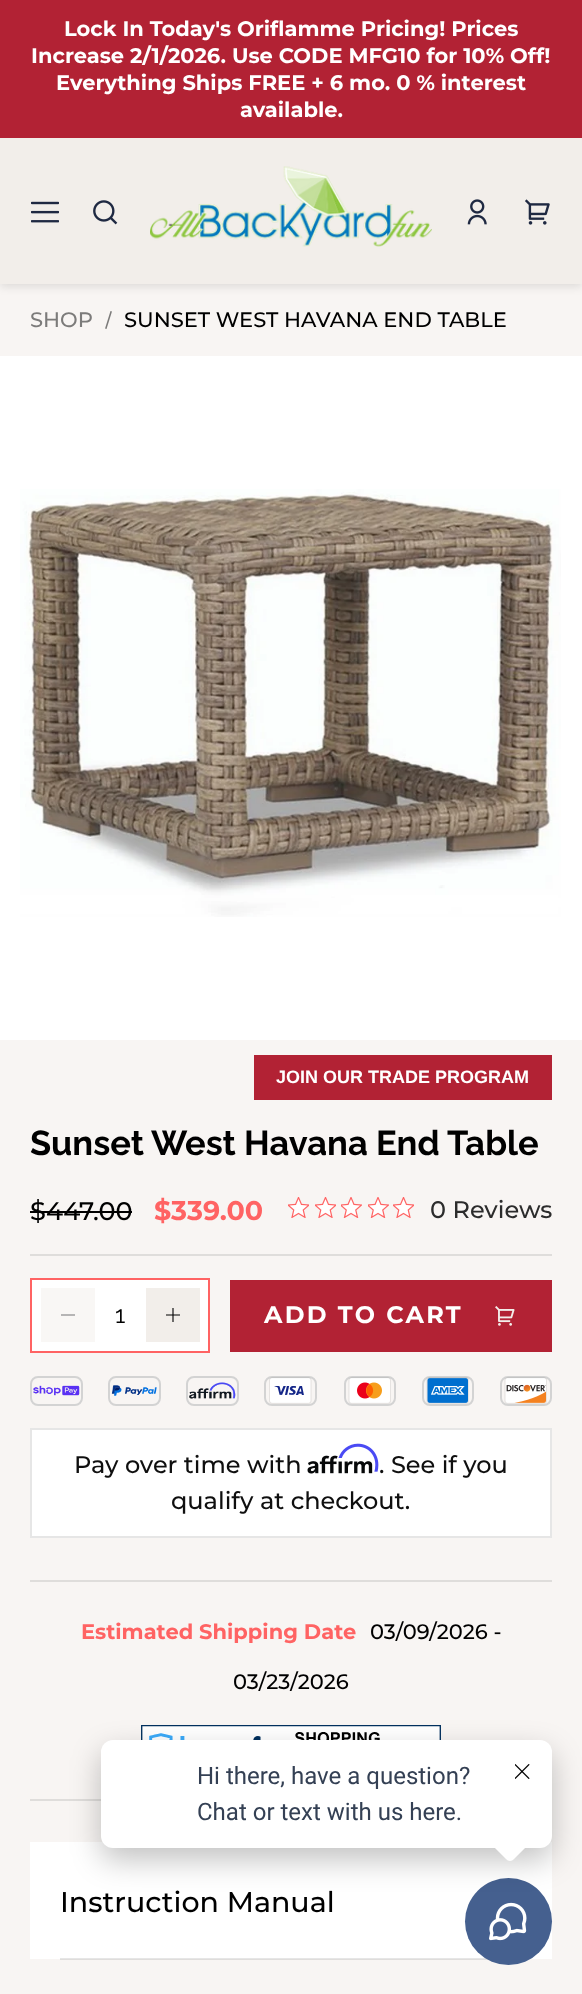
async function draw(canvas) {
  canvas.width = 582;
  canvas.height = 1994;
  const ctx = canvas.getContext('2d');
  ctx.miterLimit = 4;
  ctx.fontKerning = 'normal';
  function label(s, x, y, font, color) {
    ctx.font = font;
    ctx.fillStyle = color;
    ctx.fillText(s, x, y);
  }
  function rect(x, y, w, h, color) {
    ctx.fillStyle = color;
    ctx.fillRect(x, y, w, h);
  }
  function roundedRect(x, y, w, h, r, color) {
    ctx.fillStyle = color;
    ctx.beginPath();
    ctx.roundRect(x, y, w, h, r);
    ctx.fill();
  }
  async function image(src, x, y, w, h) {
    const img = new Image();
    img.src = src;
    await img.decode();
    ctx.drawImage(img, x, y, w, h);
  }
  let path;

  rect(0, 0, 582, 1994, '#f8f5f3');
  ctx.fillStyle = '#0000001a';
  ctx.filter = 'blur(4.5px)';
  ctx.beginPath();
  ctx.rect(0, 141, 582, 146);
  ctx.fill();
  ctx.filter = 'none';
  rect(0, 0, 582, 138, '#b22234');
  label('Lock In Today\'s Oriflamme Pricing! Prices', 64, 36, 'bold 21px Montserrat', '#fff');
  label('Increase 2/1/2026. Use CODE MFG10 for 10% Off!', 31, 63, 'bold 21px Montserrat', '#fff');
  label('Everything Ships FREE + 6 mo. 0 % interest', 56, 90, 'bold 21px Montserrat', '#fff');
  label('available.', 240, 117, 'bold 21px Montserrat', '#fff');
  rect(0, 138, 582, 146, '#f2eeea');
  await image('assets/img1.png', 31, 201, 28, 22);
  await image('assets/img2.png', 93, 200, 25, 25);
  await image('assets/img3.png', 150, 166, 282, 81);
  await image('assets/img4.png', 467, 199, 20, 26);
  await image('assets/img5.png', 525, 199, 25, 26);
  rect(60, 1959, 429, 1, '#dfdddb');
  label('SHOP', 30, 327, '100 21px Montserrat', '#7c7b7a');
  path = new Path2D('M110.5 311L112 311.5L106.5 329L105 328.5Z');
  ctx.fill(path);
  label('SUNSET WEST HAVANA END TABLE', 124, 327, '100 21px Montserrat', '#000');
  rect(0, 356, 582, 684, '#fff');
  await image('assets/img6.png', 20, 489, 541, 428);
  rect(254, 1055, 298, 45, '#b22234');
  label('JOIN OUR TRADE PROGRAM', 276, 1083, 'bold 18px Liberation Sans', '#fff');
  label('Sunset West Havana End Table', 30, 1155, '100 34.5px Raleway', '#000');
  rect(30, 1254, 522, 2, '#dfdddb');
  label('$447.00', 30, 1220, '100 25.5px Montserrat', '#000');
  rect(30, 1211, 102, 2, '#000');
  label('$339.00', 154, 1220, 'bold 27px Montserrat', '#ff6363');
  await image('assets/img7.png', 288, 1197, 21, 21);
  await image('assets/img7.png', 315, 1197, 21, 21);
  await image('assets/img8.png', 341, 1197, 21, 21);
  await image('assets/img8.png', 368, 1197, 21, 21);
  await image('assets/img7.png', 393, 1197, 21, 21);
  label('0 Reviews', 430, 1218, '100 24px Montserrat', '#2c2c2c');
  ctx.fillStyle = '#fff';
  ctx.beginPath();
  ctx.rect(31, 1279, 178, 73);
  ctx.fill();
  ctx.strokeStyle = '#ff6363';
  ctx.lineWidth = 2;
  ctx.stroke();
  rect(41, 1288, 54, 54, '#f9f7f5');
  path = new Path2D('M61 1315H75');
  ctx.strokeStyle = '#808080';
  ctx.lineWidth = 1.1;
  ctx.stroke(path);
  label('1', 115, 1323, '24px Raleway', '#000');
  rect(146, 1288, 54, 54, '#f2eeea');
  path = new Path2D('M166 1315H180M173 1308V1322');
  ctx.strokeStyle = '#000';
  ctx.stroke(path);
  rect(230, 1280, 322, 72, '#b22234');
  ctx.letterSpacing = '2.25px';
  label('ADD TO CART', 264, 1323, 'bold 24px Montserrat', '#fff');
  await image('assets/img9.png', 495, 1306, 20, 20);
  ctx.beginPath();
  ctx.roundRect(31, 1377, 51, 28, 7);
  ctx.strokeStyle = '#d3d3d3';
  ctx.lineWidth = 2;
  ctx.stroke();
  await image('assets/img10.png', 33, 1385, 47, 11);
  ctx.beginPath();
  ctx.roundRect(109, 1377, 51, 28, 7);
  ctx.stroke();
  await image('assets/img11.png', 111, 1385, 46, 11);
  ctx.beginPath();
  ctx.roundRect(187, 1377, 51, 28, 7);
  ctx.stroke();
  await image('assets/img12.png', 189, 1382, 47, 17);
  ctx.beginPath();
  ctx.roundRect(265, 1377, 51, 28, 7);
  ctx.stroke();
  await image('assets/img13.png', 269, 1377, 43, 27);
  ctx.beginPath();
  ctx.roundRect(345, 1377, 50, 28, 7);
  ctx.stroke();
  await image('assets/img14.png', 348, 1377, 43, 27);
  ctx.beginPath();
  ctx.roundRect(423, 1377, 50, 28, 7);
  ctx.stroke();
  await image('assets/img15.png', 426, 1377, 43, 27);
  ctx.beginPath();
  ctx.roundRect(501, 1377, 50, 28, 7);
  ctx.stroke();
  await image('assets/img16.png', 504, 1377, 43, 27);
  ctx.beginPath();
  ctx.rect(31, 1429, 520, 108);
  ctx.fill();
  ctx.strokeStyle = '#e6e6e6';
  ctx.stroke();
  ctx.letterSpacing = '0px';
  label('Pay over time with', 74, 1473, '100 24px Montserrat', '#0f0f0f');
  await image('assets/img18.png', 307, 1455, 66, 19);
  await image('assets/img17.png', 338, 1443, 41, 29);
  label('. See if you', 379, 1473, '100 24px Montserrat', '#0f0f0f');
  label('qualify at checkout.', 171, 1509, '100 24px Montserrat', '#0f0f0f');
  rect(30, 1580, 522, 2, '#dfdddb');
  rect(30, 1799, 71, 2, '#dfdddb');
  label('Estimated Shipping Date', 81, 1639, 'bold 21px Montserrat', '#ff6363');
  label('03/09/2026 -', 370, 1639, '100 21px Montserrat', '#000');
  label('03/23/2026', 233, 1689, '100 21px Montserrat', '#000');
  await image('assets/img19.png', 141, 1725, 300, 15);
  rect(30, 1842, 522, 117, '#fff');
  rect(60, 1958, 427, 1, '#e6e6e6');
  label('Instruction Manual', 60, 1912, '100 28.5px Montserrat', '#000');
  ctx.fillStyle = '#45608f';
  ctx.beginPath();
  ctx.arc(508.5, 1921.5, 43.5, 0, 2 * Math.PI);
  ctx.fill();
  await image('assets/img21.png', 489, 1902, 38, 39);
  ctx.fillStyle = '#0000003d';
  ctx.filter = 'blur(15px)';
  ctx.beginPath();
  ctx.roundRect(101, 1752, 451, 108, 12);
  ctx.fill();
  ctx.filter = 'none';
  roundedRect(101, 1740, 451, 108, 12, '#fff');
  label('Hi there, have a question?', 197, 1784, '24px Roboto', '#344054');
  label('Chat or text with us here.', 197, 1820, '24px Roboto', '#344054');
  ctx.fillStyle = '#fff';
  path = new Path2D('M514 1825L527 1838C529.5 1840 529.5 1844 527 1846L514 1859C512 1861.5 508 1861.5 506 1859L493 1846C490.5 1844 490.5 1840 493 1838L506 1825C508 1822.5 512 1822.5 514 1825Z');
  ctx.fill(path);
  await image('assets/img20.png', 515, 1764, 15, 15);
}

draw(document.querySelector('canvas'));
